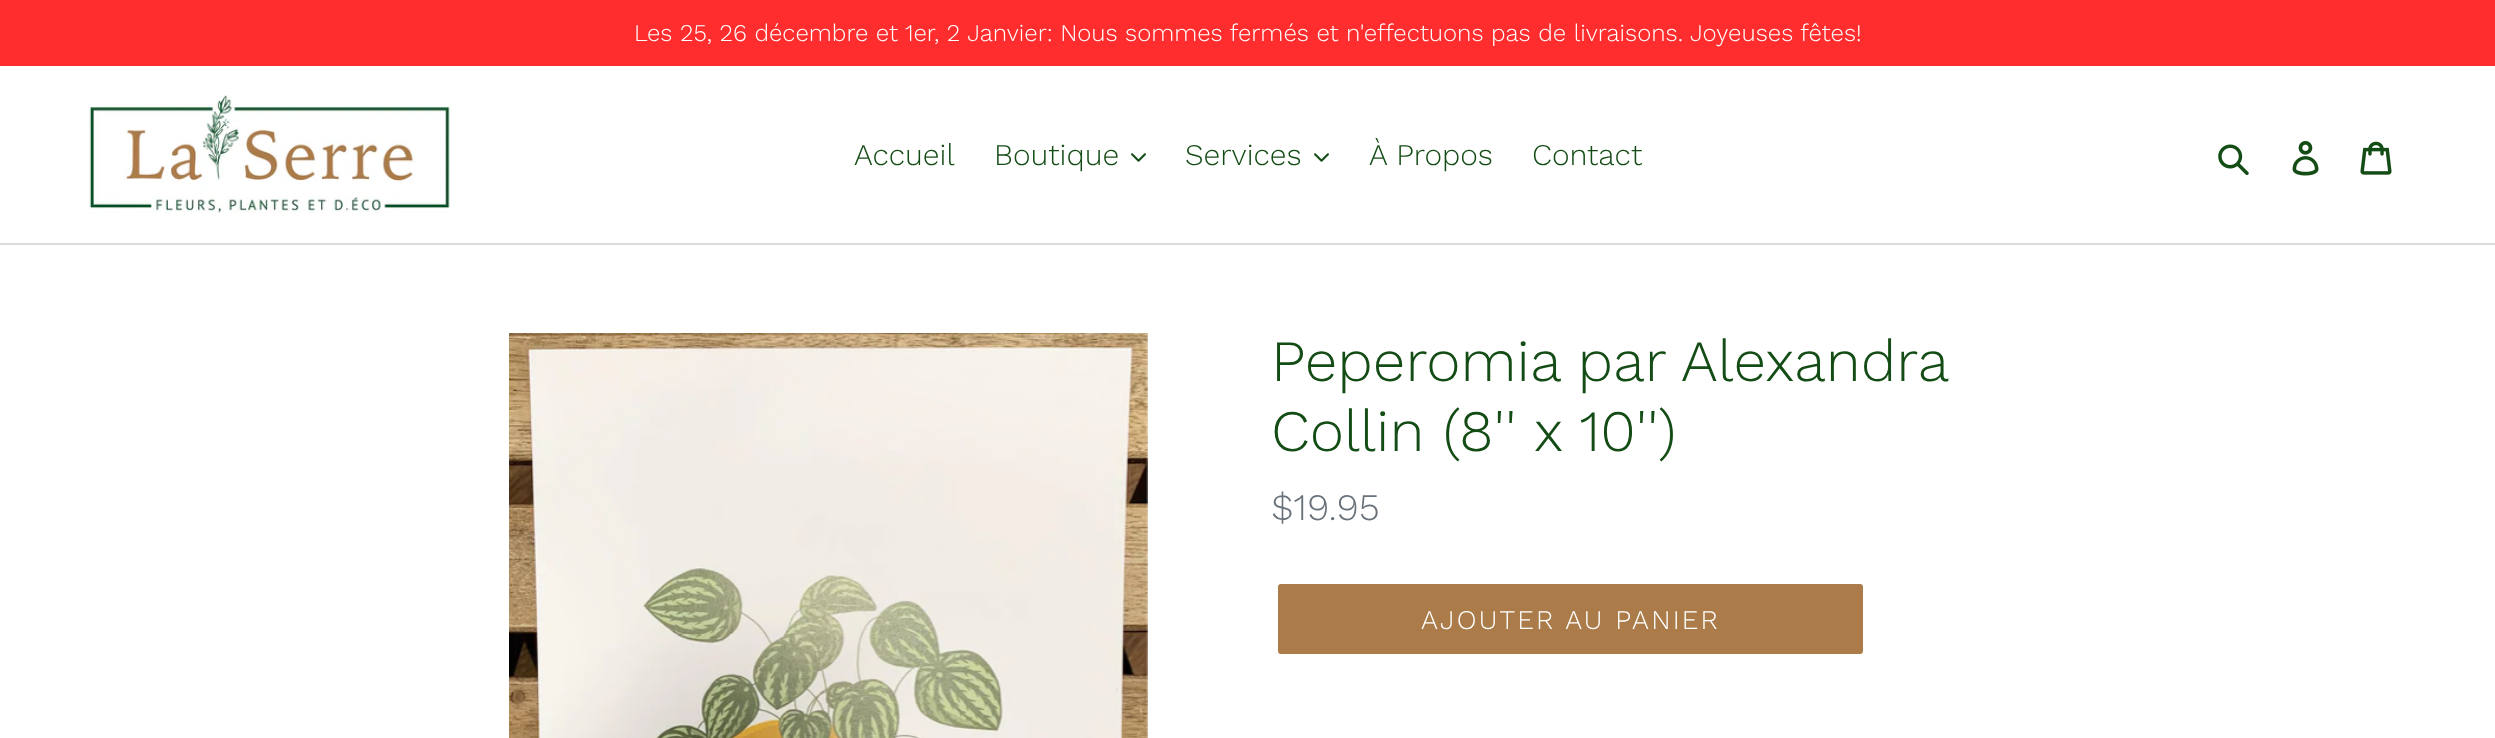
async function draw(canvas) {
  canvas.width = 2495;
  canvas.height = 738;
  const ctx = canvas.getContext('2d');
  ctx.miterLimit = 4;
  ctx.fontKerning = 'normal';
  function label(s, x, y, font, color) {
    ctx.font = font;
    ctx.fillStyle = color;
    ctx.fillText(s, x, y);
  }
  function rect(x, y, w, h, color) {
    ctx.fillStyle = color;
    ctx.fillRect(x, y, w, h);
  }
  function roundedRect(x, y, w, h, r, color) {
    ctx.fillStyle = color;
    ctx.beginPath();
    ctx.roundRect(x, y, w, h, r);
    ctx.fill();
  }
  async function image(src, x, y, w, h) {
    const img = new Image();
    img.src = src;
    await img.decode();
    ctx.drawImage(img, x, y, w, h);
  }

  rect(0, 0, 2495, 738, '#fff');
  rect(0, 0, 2495, 66, '#ff2d2d');
  label('Les 25, 26 décembre et 1er, 2 Janvier: Nous sommes fermés et n\'effectuons pas de livraisons. Joyeuses fêtes!', 634, 41, '300 24px Work Sans', '#fff');
  rect(0, 243, 2495, 2, '#dbdbdb');
  await image('assets/img1.png', 89, 95, 361, 118);
  label('Accueil', 854, 165, '300 30px Work Sans', '#144c15');
  label('Boutique', 994, 165, '300 30px Work Sans', '#144c15');
  await image('assets/img2.png', 1131, 153, 15, 9);
  label('Services', 1185, 165, '300 30px Work Sans', '#144c15');
  await image('assets/img2.png', 1314, 153, 15, 9);
  label('À Propos', 1369, 165, '300 30px Work Sans', '#144c15');
  label('Contact', 1532, 165, '300 30px Work Sans', '#144c15');
  await image('assets/img3.png', 2218, 144, 31, 31);
  await image('assets/img4.png', 2292, 141, 27, 35);
  await image('assets/img5.png', 2360, 141, 32, 34);
  await image('assets/img6.png', 509, 333, 639, 405);
  ctx.wordSpacing = '-1px';
  label('Peperomia par Alexandra', 1271, 381, '300 58.5px Work Sans', '#144c15');
  ctx.wordSpacing = '0px';
  label('Collin (8\'\' x 10\'\')', 1271, 451, '300 58.5px Work Sans', '#144c15');
  label('$19.95', 1271, 520, '300 37.5px Work Sans', '#69727b');
  roundedRect(1278, 584, 585, 70, 3, '#ab7c49');
  ctx.letterSpacing = '2.2px';
  label('AJOUTER AU PANIER', 1421, 629, '300 27px Work Sans', '#fff');
}

draw(document.querySelector('canvas'));
